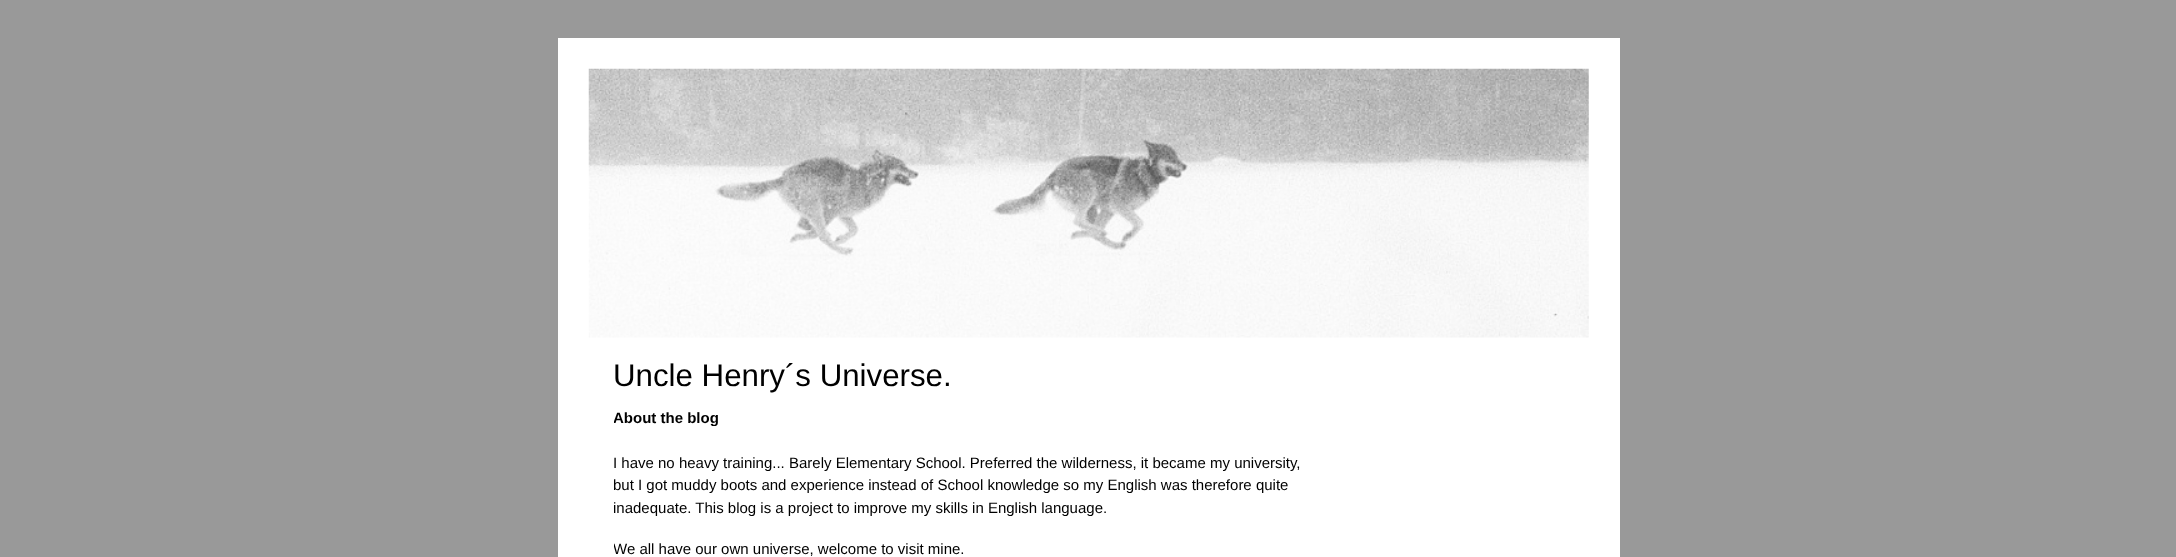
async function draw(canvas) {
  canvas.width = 2176;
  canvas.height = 557;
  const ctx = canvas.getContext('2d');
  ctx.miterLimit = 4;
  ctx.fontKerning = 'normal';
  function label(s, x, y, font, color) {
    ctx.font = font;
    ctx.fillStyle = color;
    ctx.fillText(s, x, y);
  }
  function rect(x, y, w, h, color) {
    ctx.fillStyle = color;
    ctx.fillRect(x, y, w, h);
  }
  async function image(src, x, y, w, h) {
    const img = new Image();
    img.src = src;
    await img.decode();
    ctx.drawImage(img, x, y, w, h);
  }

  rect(0, 0, 2176, 557, '#999');
  rect(558, 38, 1062, 519, '#fff');
  await image('assets/img1.png', 588, 68, 1001, 270);
  label('Uncle Henry´s Universe.', 613, 386, '31.25px Liberation Sans', '#000');
  ctx.save();
  ctx.beginPath();
  ctx.rect(614, 409, 700, 17);
  ctx.clip();
  label('About the blog', 613, 423, 'bold 15px Liberation Sans', '#000');
  ctx.restore();
  label('I have no heavy training... Barely Elementary School. Preferred the wilderness, it became my university,', 613, 468, '15px Liberation Sans', '#000');
  label('but I got muddy boots and experience instead of School knowledge so my English was therefore quite', 613, 490, '15px Liberation Sans', '#000');
  label('inadequate. This blog is a project to improve my skills in English language.', 613, 513, '15px Liberation Sans', '#000');
  ctx.save();
  ctx.beginPath();
  ctx.rect(614, 538, 700, 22);
  ctx.clip();
  label('We all have our own universe, welcome to visit mine.', 613, 554, '15px Liberation Sans', '#000');
  ctx.restore();
}

draw(document.querySelector('canvas'));
